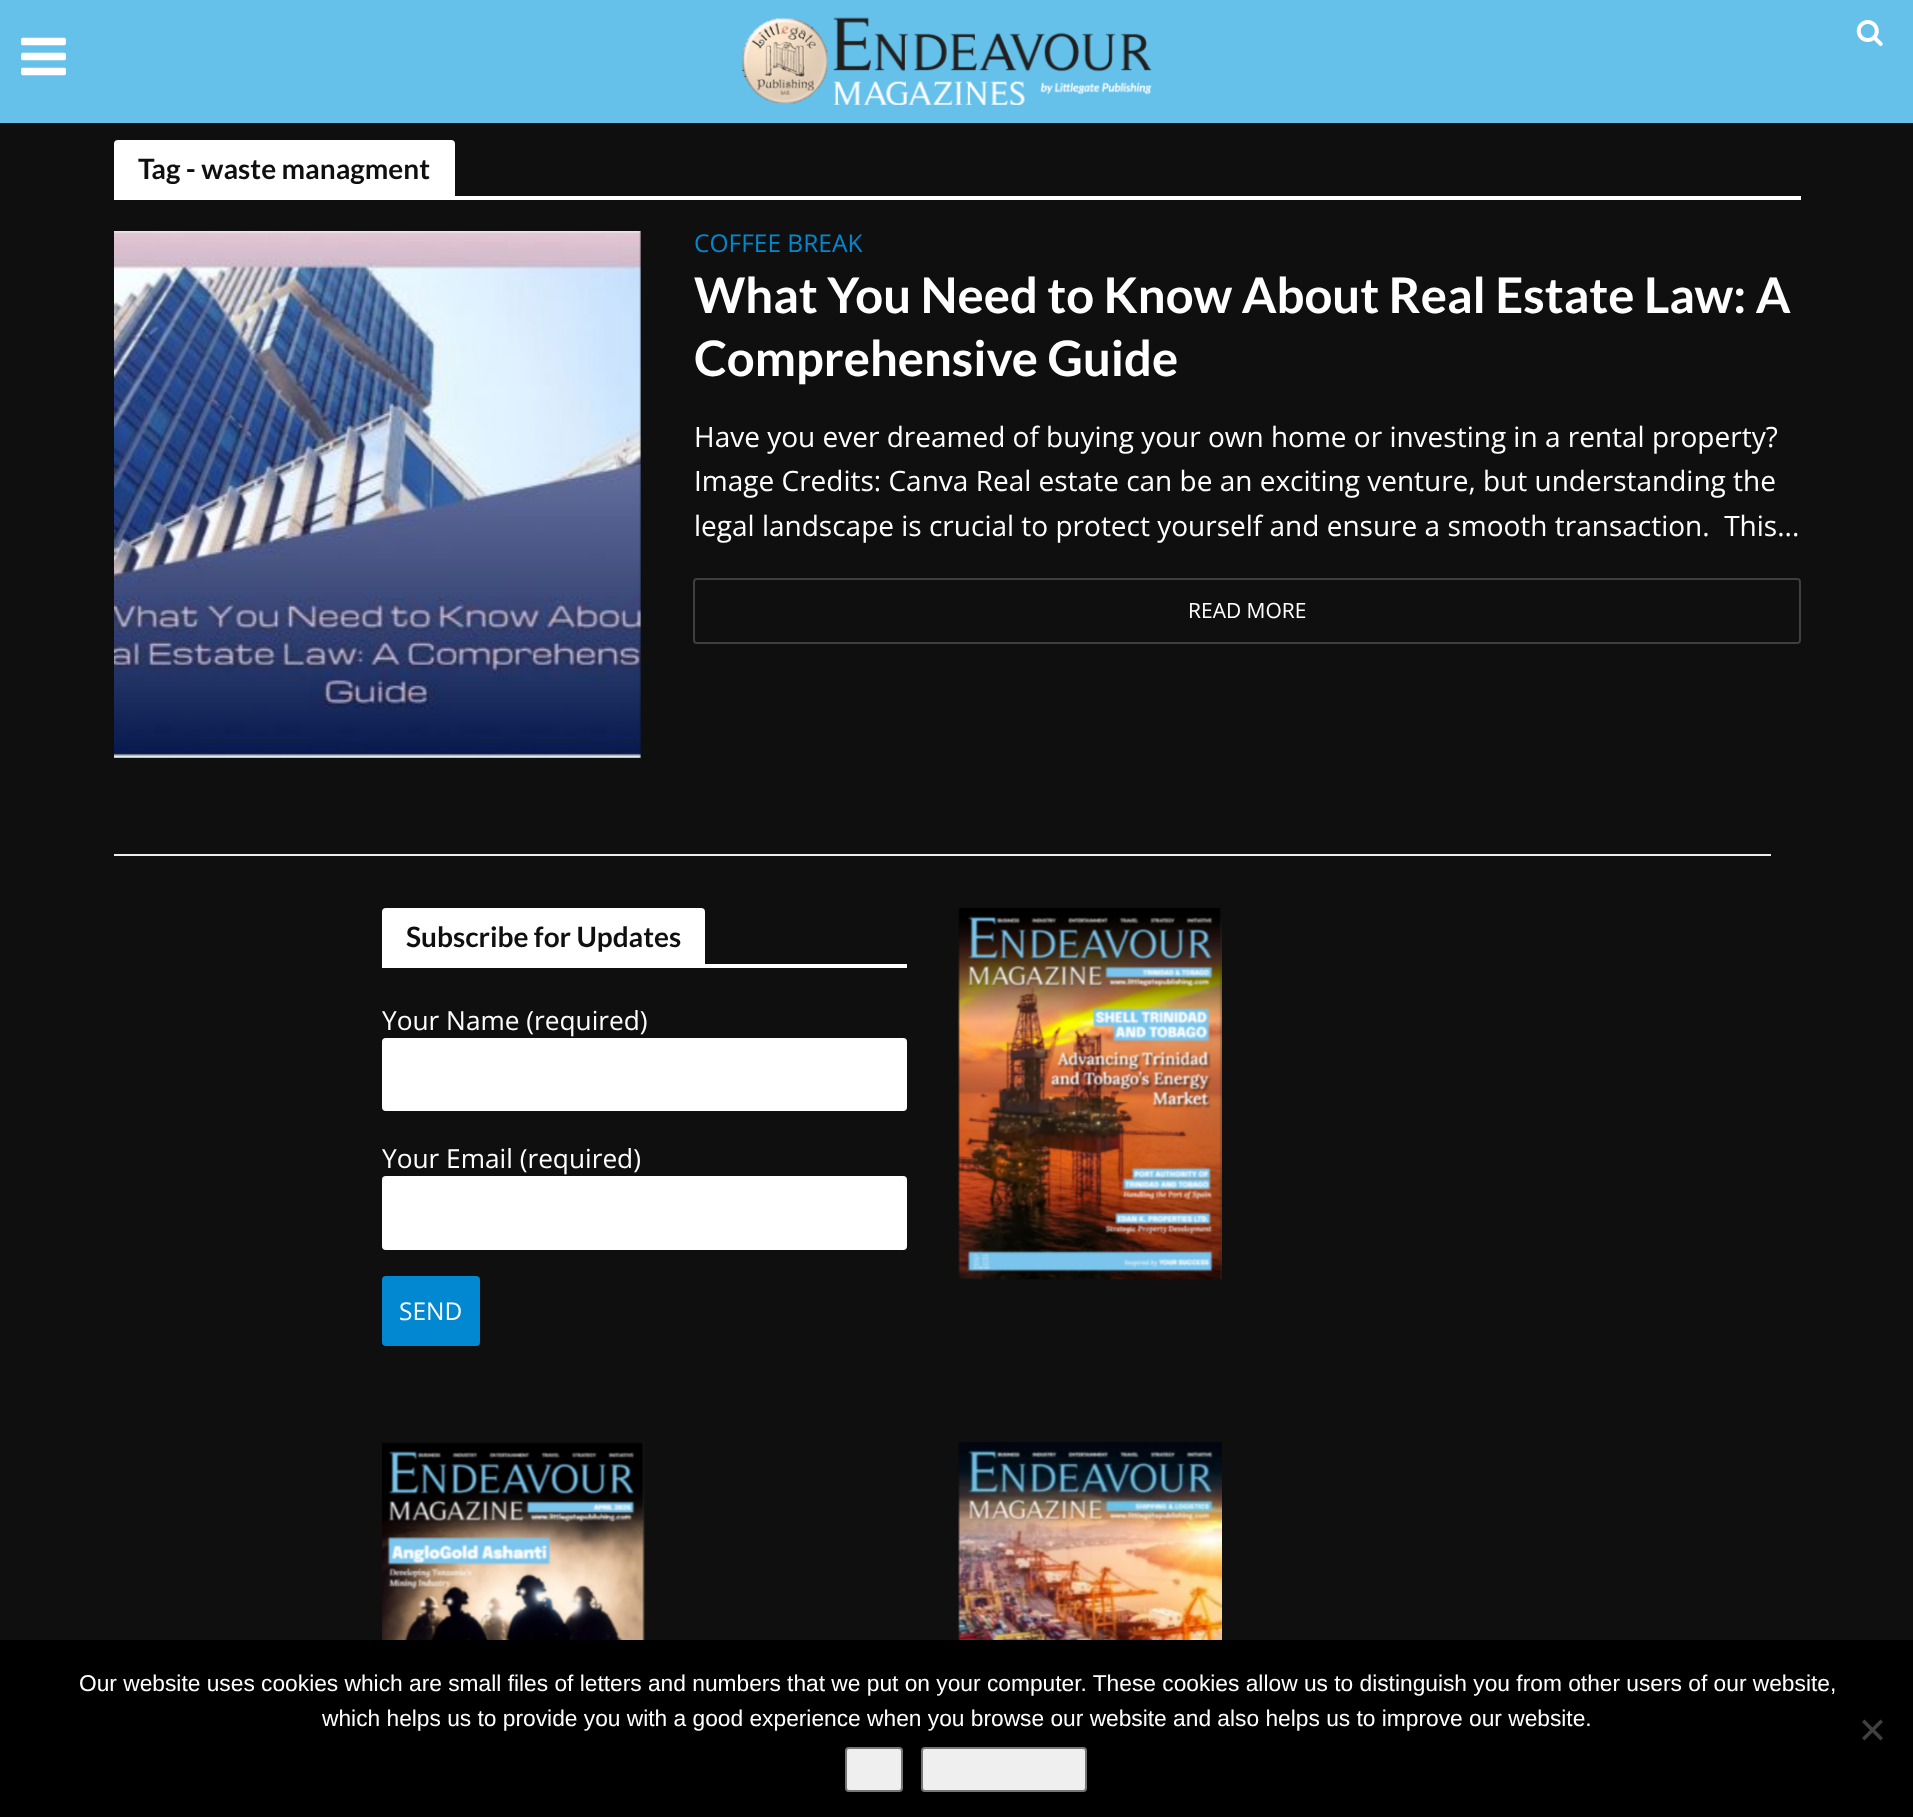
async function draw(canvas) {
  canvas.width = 1913;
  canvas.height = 1817;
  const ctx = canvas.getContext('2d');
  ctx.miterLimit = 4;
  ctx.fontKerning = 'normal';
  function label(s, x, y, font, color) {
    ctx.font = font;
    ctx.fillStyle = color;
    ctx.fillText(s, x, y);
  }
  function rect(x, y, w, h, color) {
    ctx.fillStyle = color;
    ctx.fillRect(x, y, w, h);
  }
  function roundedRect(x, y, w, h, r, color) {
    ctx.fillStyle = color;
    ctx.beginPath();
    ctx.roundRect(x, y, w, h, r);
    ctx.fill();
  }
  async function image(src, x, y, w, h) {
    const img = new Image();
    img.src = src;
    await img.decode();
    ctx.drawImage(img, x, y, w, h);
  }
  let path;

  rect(0, 0, 1913, 1817, '#0f0f0f');
  rect(0, 0, 1913, 123, '#65c1ea');
  await image('assets/img1.png', 741, 17, 411, 88);
  await image('assets/img2.png', 1856, 20, 27, 26);
  await image('assets/img3.png', 21, 37, 45, 39);
  ctx.fillStyle = '#fff';
  ctx.beginPath();
  ctx.roundRect(114, 140, 341, 56, [4, 4, 0, 0]);
  ctx.fill();
  label('Tag - waste managment', 138, 179, 'bold 28px Lato', '#0f0f0f');
  rect(114, 196, 1687, 4, '#fff');
  await image('assets/img4.png', 114, 231, 527, 527);
  label('COFFEE BREAK', 694, 252, '24.5px Open Sans', '#0288d1');
  label('What You Need to Know About Real Estate Law: A', 694, 313, 'bold 49px Lato', '#fff');
  label('Comprehensive Guide', 694, 376, 'bold 49px Lato', '#fff');
  label('Have you ever dreamed of buying your own home or investing in a rental property?', 694, 447, '28px Open Sans', '#fff');
  label('Image Credits: Canva Real estate can be an exciting venture, but understanding the', 694, 491, '28px Open Sans', '#fff');
  label('legal landscape is crucial to protect yourself and ensure a smooth transaction.  This...', 694, 536, '28px Open Sans', '#fff');
  ctx.beginPath();
  ctx.roundRect(694, 579, 1106, 64, 3);
  ctx.strokeStyle = '#3f3f3f';
  ctx.lineWidth = 2;
  ctx.stroke();
  label('READ MORE', 1188, 618, '21px Open Sans', '#fff');
  rect(114, 854, 1657, 2, '#eee');
  ctx.fillStyle = '#fff';
  ctx.beginPath();
  ctx.roundRect(382, 908, 323, 56, [4, 4, 0, 0]);
  ctx.fill();
  label('Subscribe for Updates', 406, 947, 'bold 28px Lato', '#0f0f0f');
  rect(382, 964, 525, 4, '#fff');
  label('Your Name (required)', 382, 1030, '26.25px Open Sans', '#fff');
  roundedRect(382, 1038, 525, 73, 4, '#fff');
  ctx.beginPath();
  ctx.roundRect(383, 1039, 523, 71, 3);
  ctx.strokeStyle = '#ffffff33';
  ctx.stroke();
  label('Your Email (required)', 382, 1168, '26.25px Open Sans', '#fff');
  roundedRect(382, 1176, 525, 74, 4, '#fff');
  ctx.beginPath();
  ctx.roundRect(383, 1177, 523, 72, 3);
  ctx.stroke();
  roundedRect(382, 1276, 98, 70, 4, '#0288d1');
  label('SEND', 399, 1320, '24.5px Open Sans', '#fff');
  await image('assets/img5.png', 958, 908, 264, 372);
  await image('assets/img6.png', 382, 1442, 263, 198);
  await image('assets/img7.png', 958, 1442, 264, 198);
  rect(0, 1640, 1913, 177, '#000');
  label('Our website uses cookies which are small files of letters and numbers that we put on your computer. These cookies allow us to distinguish you from other users of our website,', 79, 1691, '22.75px Liberation Sans', '#fff');
  label('which helps us to provide you with a good experience when you browse our website and also helps us to improve our website.', 322, 1726, '22.75px Liberation Sans', '#fff');
  ctx.fillStyle = '#404040';
  path = new Path2D('M1880.5 1719.5L1883 1722L1864.5 1740.5L1862 1738Z');
  ctx.fill(path);
  path = new Path2D('M1862 1722L1864.5 1719.5L1883 1738L1880.5 1740.5Z');
  ctx.fill(path);
  ctx.fillStyle = '#efefef';
  ctx.beginPath();
  ctx.roundRect(846, 1748, 56, 43, 3);
  ctx.fill();
  ctx.strokeStyle = '#767676';
  ctx.stroke();
  ctx.beginPath();
  ctx.roundRect(922, 1748, 164, 43, 3);
  ctx.fill();
  ctx.stroke();
}

draw(document.querySelector('canvas'));
